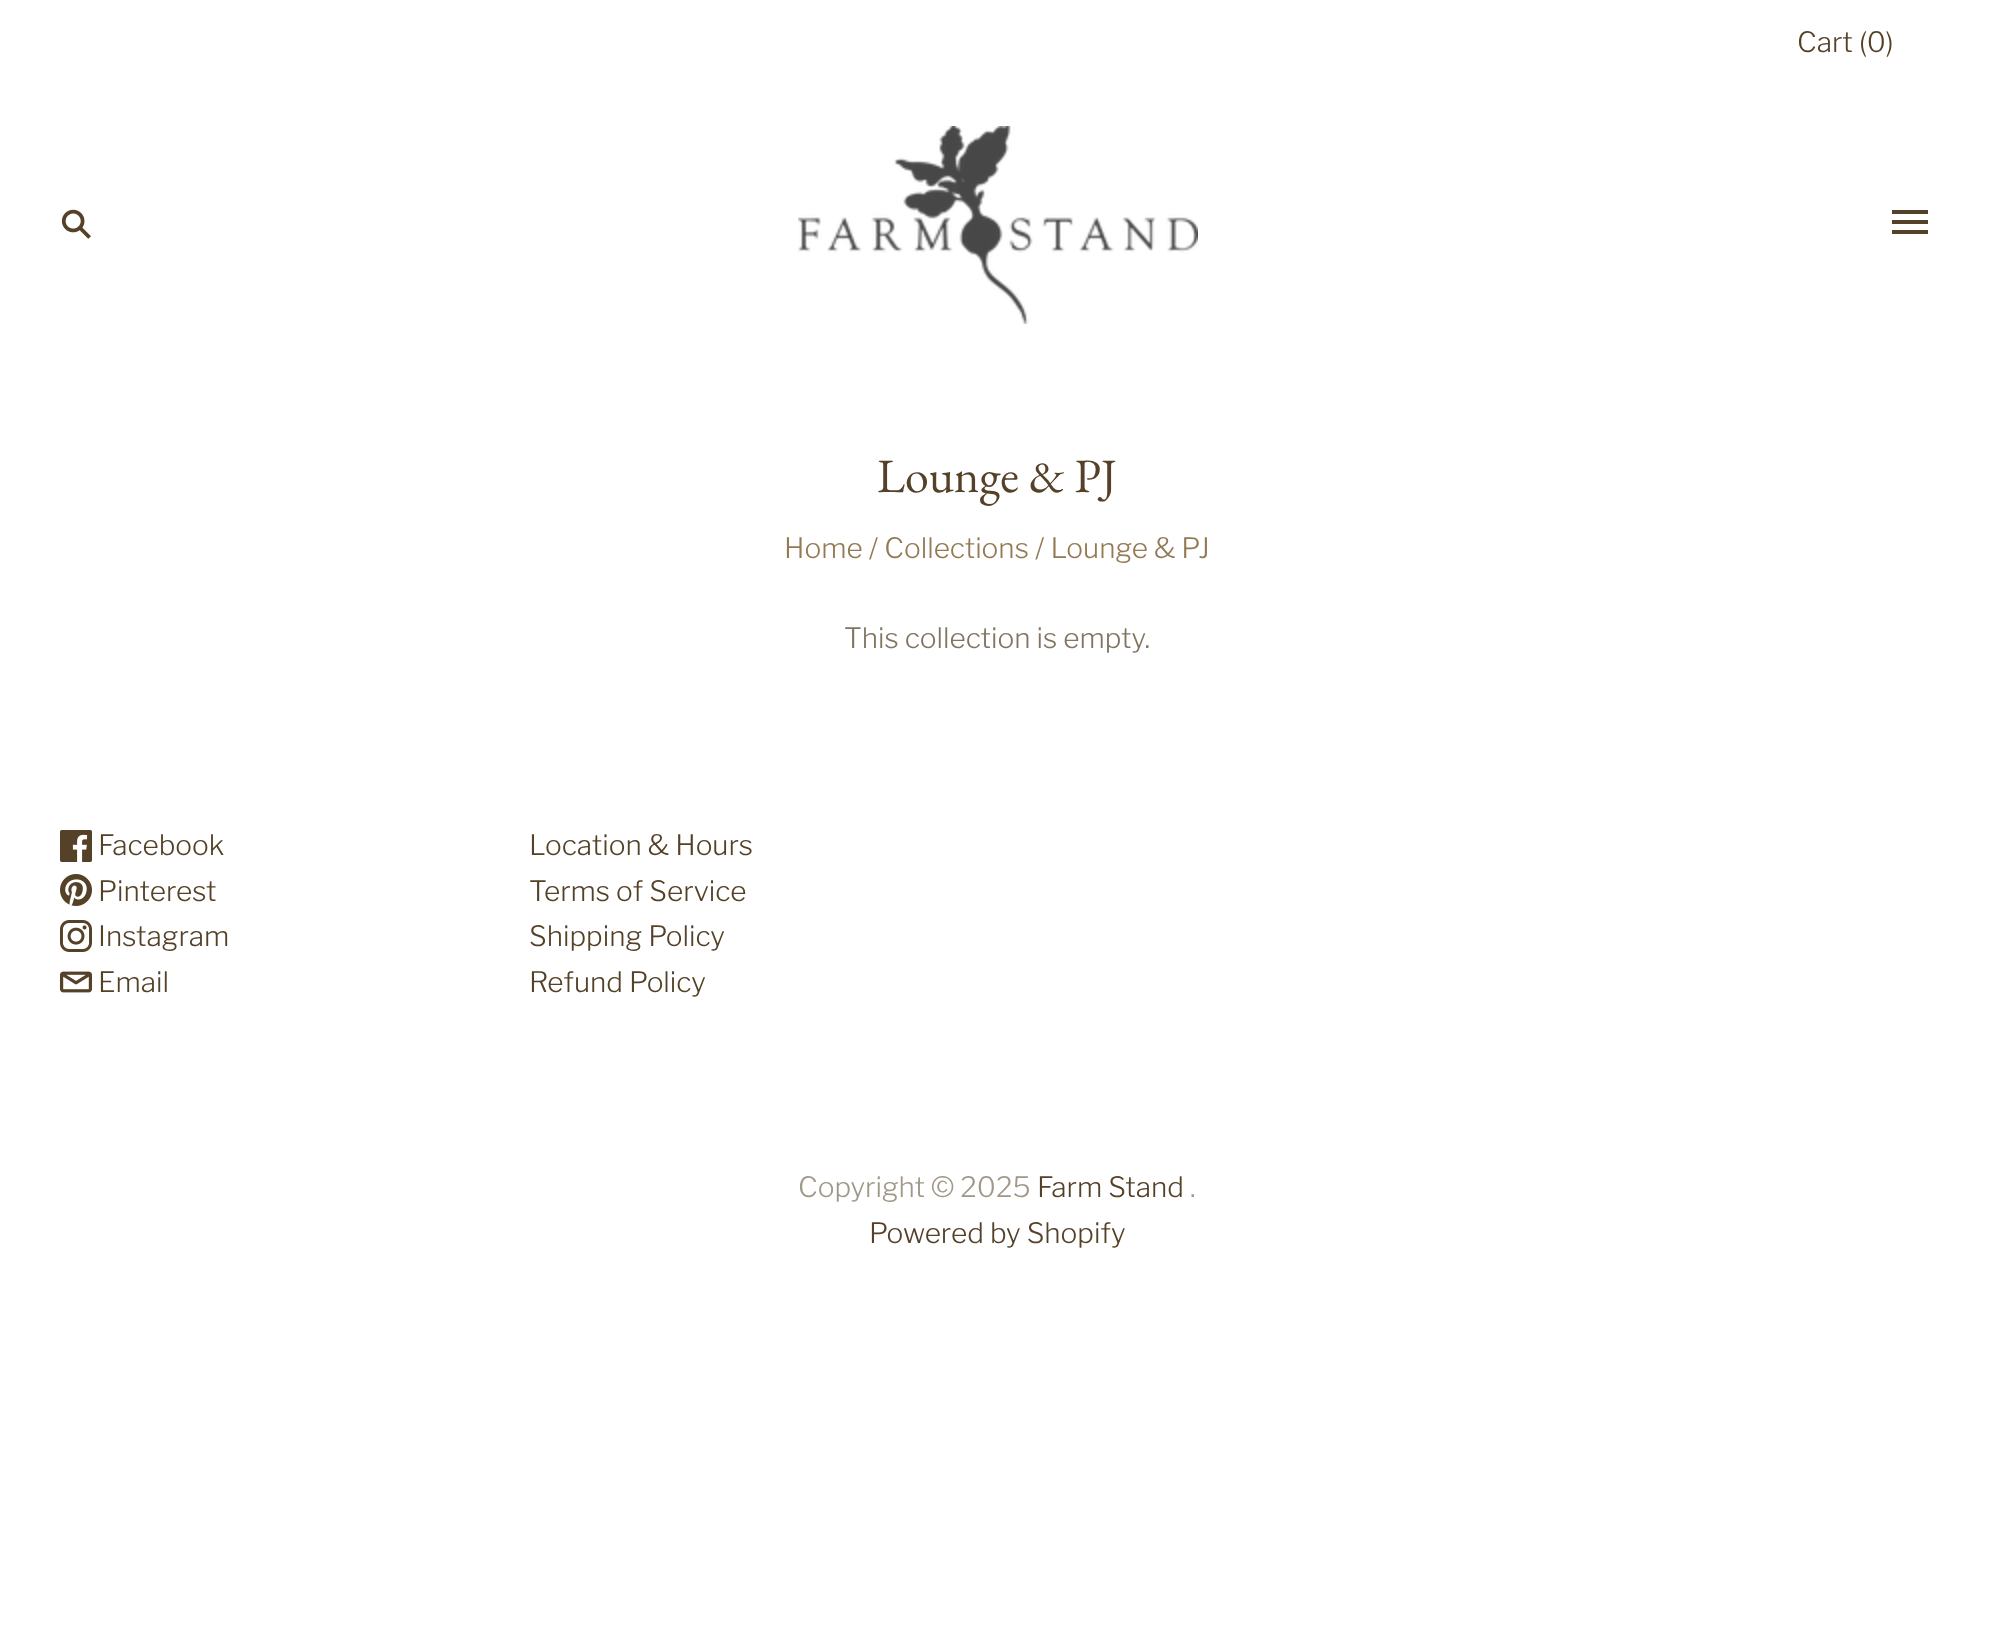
async function draw(canvas) {
  canvas.width = 1994;
  canvas.height = 1641;
  const ctx = canvas.getContext('2d');
  ctx.miterLimit = 4;
  ctx.fontKerning = 'normal';
  function label(s, x, y, font, color) {
    ctx.font = font;
    ctx.fillStyle = color;
    ctx.fillText(s, x, y);
  }
  function rect(x, y, w, h, color) {
    ctx.fillStyle = color;
    ctx.fillRect(x, y, w, h);
  }
  async function image(src, x, y, w, h) {
    const img = new Image();
    img.src = src;
    await img.decode();
    ctx.drawImage(img, x, y, w, h);
  }
  let path;

  rect(0, 0, 1994, 1641, '#fff');
  label('Cart (0)', 1797, 52, '300 28px Libre Franklin', '#544128');
  await image('assets/img1.png', 61, 209, 30, 30);
  await image('assets/img2.png', 798, 126, 400, 198);
  path = new Path2D('M1892 210H1928V214H1892ZM1892 220H1928V224H1892ZM1892 230H1928V234H1892Z');
  ctx.fill(path, 'evenodd');
  label('Lounge & PJ', 877, 492, '48px EB Garamond', '#544128');
  label('Home / Collections / Lounge & PJ', 784, 558, '300 28px Libre Franklin', '#937a54');
  label('This collection is empty.', 844, 648, '300 28px Libre Franklin', '#817562');
  await image('assets/img3.png', 60, 830, 32, 32);
  label('Facebook', 98, 855, '300 28px Libre Franklin', '#544128');
  await image('assets/img4.png', 60, 874, 32, 32);
  label('Pinterest', 98, 901, '300 28px Libre Franklin', '#544128');
  await image('assets/img5.png', 60, 920, 32, 32);
  label('Instagram', 98, 946, '300 28px Libre Franklin', '#544128');
  await image('assets/img6.png', 60, 971, 32, 22);
  label('Email', 98, 992, '300 28px Libre Franklin', '#544128');
  label('Location & Hours', 529, 855, '300 28px Libre Franklin', '#544128');
  label('Terms of Service', 529, 901, '300 28px Libre Franklin', '#544128');
  label('Shipping Policy', 529, 946, '300 28px Libre Franklin', '#544128');
  label('Refund Policy', 529, 992, '300 28px Libre Franklin', '#544128');
  label('Copyright © 2025', 798, 1197, '300 28px Libre Franklin', '#a09789');
  label('Farm Stand', 1037, 1197, '300 28px Libre Franklin', '#544128');
  label('.', 1190, 1197, '300 28px Libre Franklin', '#a09789');
  label('Powered by Shopify', 869, 1243, '300 28px Libre Franklin', '#544128');
}

draw(document.querySelector('canvas'));
